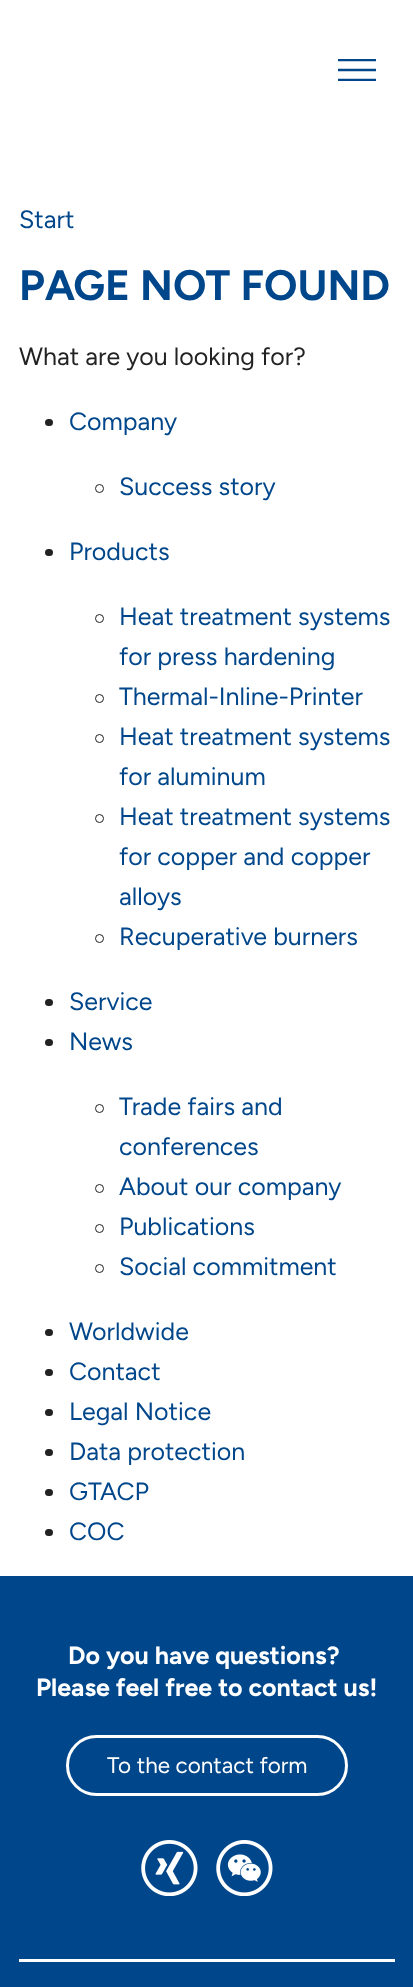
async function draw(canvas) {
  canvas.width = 413;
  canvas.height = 1987;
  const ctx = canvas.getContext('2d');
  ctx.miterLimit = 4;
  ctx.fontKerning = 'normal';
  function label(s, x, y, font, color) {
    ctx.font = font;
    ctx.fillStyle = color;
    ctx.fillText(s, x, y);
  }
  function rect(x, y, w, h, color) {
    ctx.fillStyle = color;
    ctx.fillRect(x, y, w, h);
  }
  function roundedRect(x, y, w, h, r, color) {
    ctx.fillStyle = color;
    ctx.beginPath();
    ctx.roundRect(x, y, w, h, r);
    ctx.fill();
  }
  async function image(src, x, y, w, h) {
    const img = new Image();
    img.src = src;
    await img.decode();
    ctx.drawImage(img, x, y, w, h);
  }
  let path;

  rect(0, 0, 413, 1987, '#fff');
  ctx.save();
  ctx.beginPath();
  ctx.rect(338, 59, 38, 22);
  ctx.clip();
  path = new Path2D('M337.5 70H376M337.5 80H376M337.5 60H376');
  ctx.strokeStyle = '#00468a';
  ctx.lineWidth = 2.5;
  ctx.stroke(path);
  ctx.restore();
  label('Start', 19, 228, '25px Figtree', '#00468a');
  label('PAGE NOT FOUND', 19, 300, 'bold 42.5px Figtree', '#00468a');
  label('What are you looking for?', 19, 365, '25px Figtree', '#222');
  roundedRect(45, 419, 8, 7, 3.5, '#222');
  label('Company', 69, 430, '25px Figtree', '#00468a');
  ctx.beginPath();
  ctx.arc(99.5, 488.5, 4, 0, 2 * Math.PI);
  ctx.strokeStyle = '#222';
  ctx.stroke();
  label('Success story', 119, 495, '25px Figtree', '#00468a');
  roundedRect(45, 549, 8, 7, 3.5, '#222');
  label('Products', 69, 560, '25px Figtree', '#00468a');
  ctx.beginPath();
  ctx.arc(99.5, 618.5, 4, 0, 2 * Math.PI);
  ctx.stroke();
  label('Heat treatment systems', 119, 625, '25px Figtree', '#00468a');
  label('for press hardening', 119, 665, '25px Figtree', '#00468a');
  ctx.beginPath();
  ctx.arc(99.5, 698.5, 4, 0, 2 * Math.PI);
  ctx.stroke();
  label('Thermal-Inline-Printer', 119, 705, '25px Figtree', '#00468a');
  ctx.beginPath();
  ctx.arc(99.5, 738.5, 4, 0, 2 * Math.PI);
  ctx.stroke();
  label('Heat treatment systems', 119, 745, '25px Figtree', '#00468a');
  label('for aluminum', 119, 785, '25px Figtree', '#00468a');
  ctx.beginPath();
  ctx.arc(99.5, 818.5, 4, 0, 2 * Math.PI);
  ctx.stroke();
  label('Heat treatment systems', 119, 825, '25px Figtree', '#00468a');
  label('for copper and copper', 119, 865, '25px Figtree', '#00468a');
  label('alloys', 119, 905, '25px Figtree', '#00468a');
  ctx.beginPath();
  ctx.arc(99.5, 938.5, 4, 0, 2 * Math.PI);
  ctx.stroke();
  label('Recuperative burners', 119, 945, '25px Figtree', '#00468a');
  roundedRect(45, 999, 8, 7, 3.5, '#222');
  label('Service', 69, 1010, '25px Figtree', '#00468a');
  roundedRect(45, 1039, 8, 7, 3.5, '#222');
  label('News', 69, 1050, '25px Figtree', '#00468a');
  ctx.beginPath();
  ctx.arc(99.5, 1108.5, 4, 0, 2 * Math.PI);
  ctx.stroke();
  label('Trade fairs and', 119, 1115, '25px Figtree', '#00468a');
  label('conferences', 119, 1155, '25px Figtree', '#00468a');
  ctx.beginPath();
  ctx.arc(99.5, 1188.5, 4, 0, 2 * Math.PI);
  ctx.stroke();
  label('About our company', 119, 1195, '25px Figtree', '#00468a');
  ctx.beginPath();
  ctx.arc(99.5, 1228.5, 4, 0, 2 * Math.PI);
  ctx.stroke();
  label('Publications', 119, 1235, '25px Figtree', '#00468a');
  ctx.beginPath();
  ctx.arc(99.5, 1268.5, 4, 0, 2 * Math.PI);
  ctx.stroke();
  label('Social commitment', 119, 1275, '25px Figtree', '#00468a');
  roundedRect(45, 1329, 8, 7, 3.5, '#222');
  label('Worldwide', 69, 1340, '25px Figtree', '#00468a');
  roundedRect(45, 1369, 8, 7, 3.5, '#222');
  label('Contact', 69, 1380, '25px Figtree', '#00468a');
  roundedRect(45, 1409, 8, 7, 3.5, '#222');
  label('Legal Notice', 69, 1420, '25px Figtree', '#00468a');
  roundedRect(45, 1449, 8, 7, 3.5, '#222');
  label('Data protection', 69, 1460, '25px Figtree', '#00468a');
  roundedRect(45, 1489, 8, 7, 3.5, '#222');
  label('GTACP', 69, 1500, '25px Figtree', '#00468a');
  roundedRect(45, 1529, 8, 7, 3.5, '#222');
  label('COC', 69, 1540, '25px Figtree', '#00468a');
  rect(0, 1576, 413, 411, '#00468a');
  label('Do you have questions?', 68, 1664, 'bold 25px Figtree', '#fff');
  label('Please feel free to contact us!', 36, 1696, 'bold 25px Figtree', '#fff');
  ctx.beginPath();
  ctx.roundRect(67.5, 1736.5, 279, 58, 29);
  ctx.strokeStyle = '#fff';
  ctx.lineWidth = 3;
  ctx.stroke();
  label('To the contact form', 107, 1773, '22.5px Figtree', '#fff');
  await image('assets/img1.png', 141, 1840, 57, 56);
  await image('assets/img2.png', 216, 1840, 57, 56);
  rect(19, 1959, 376, 3, '#fff');
}

draw(document.querySelector('canvas'));
